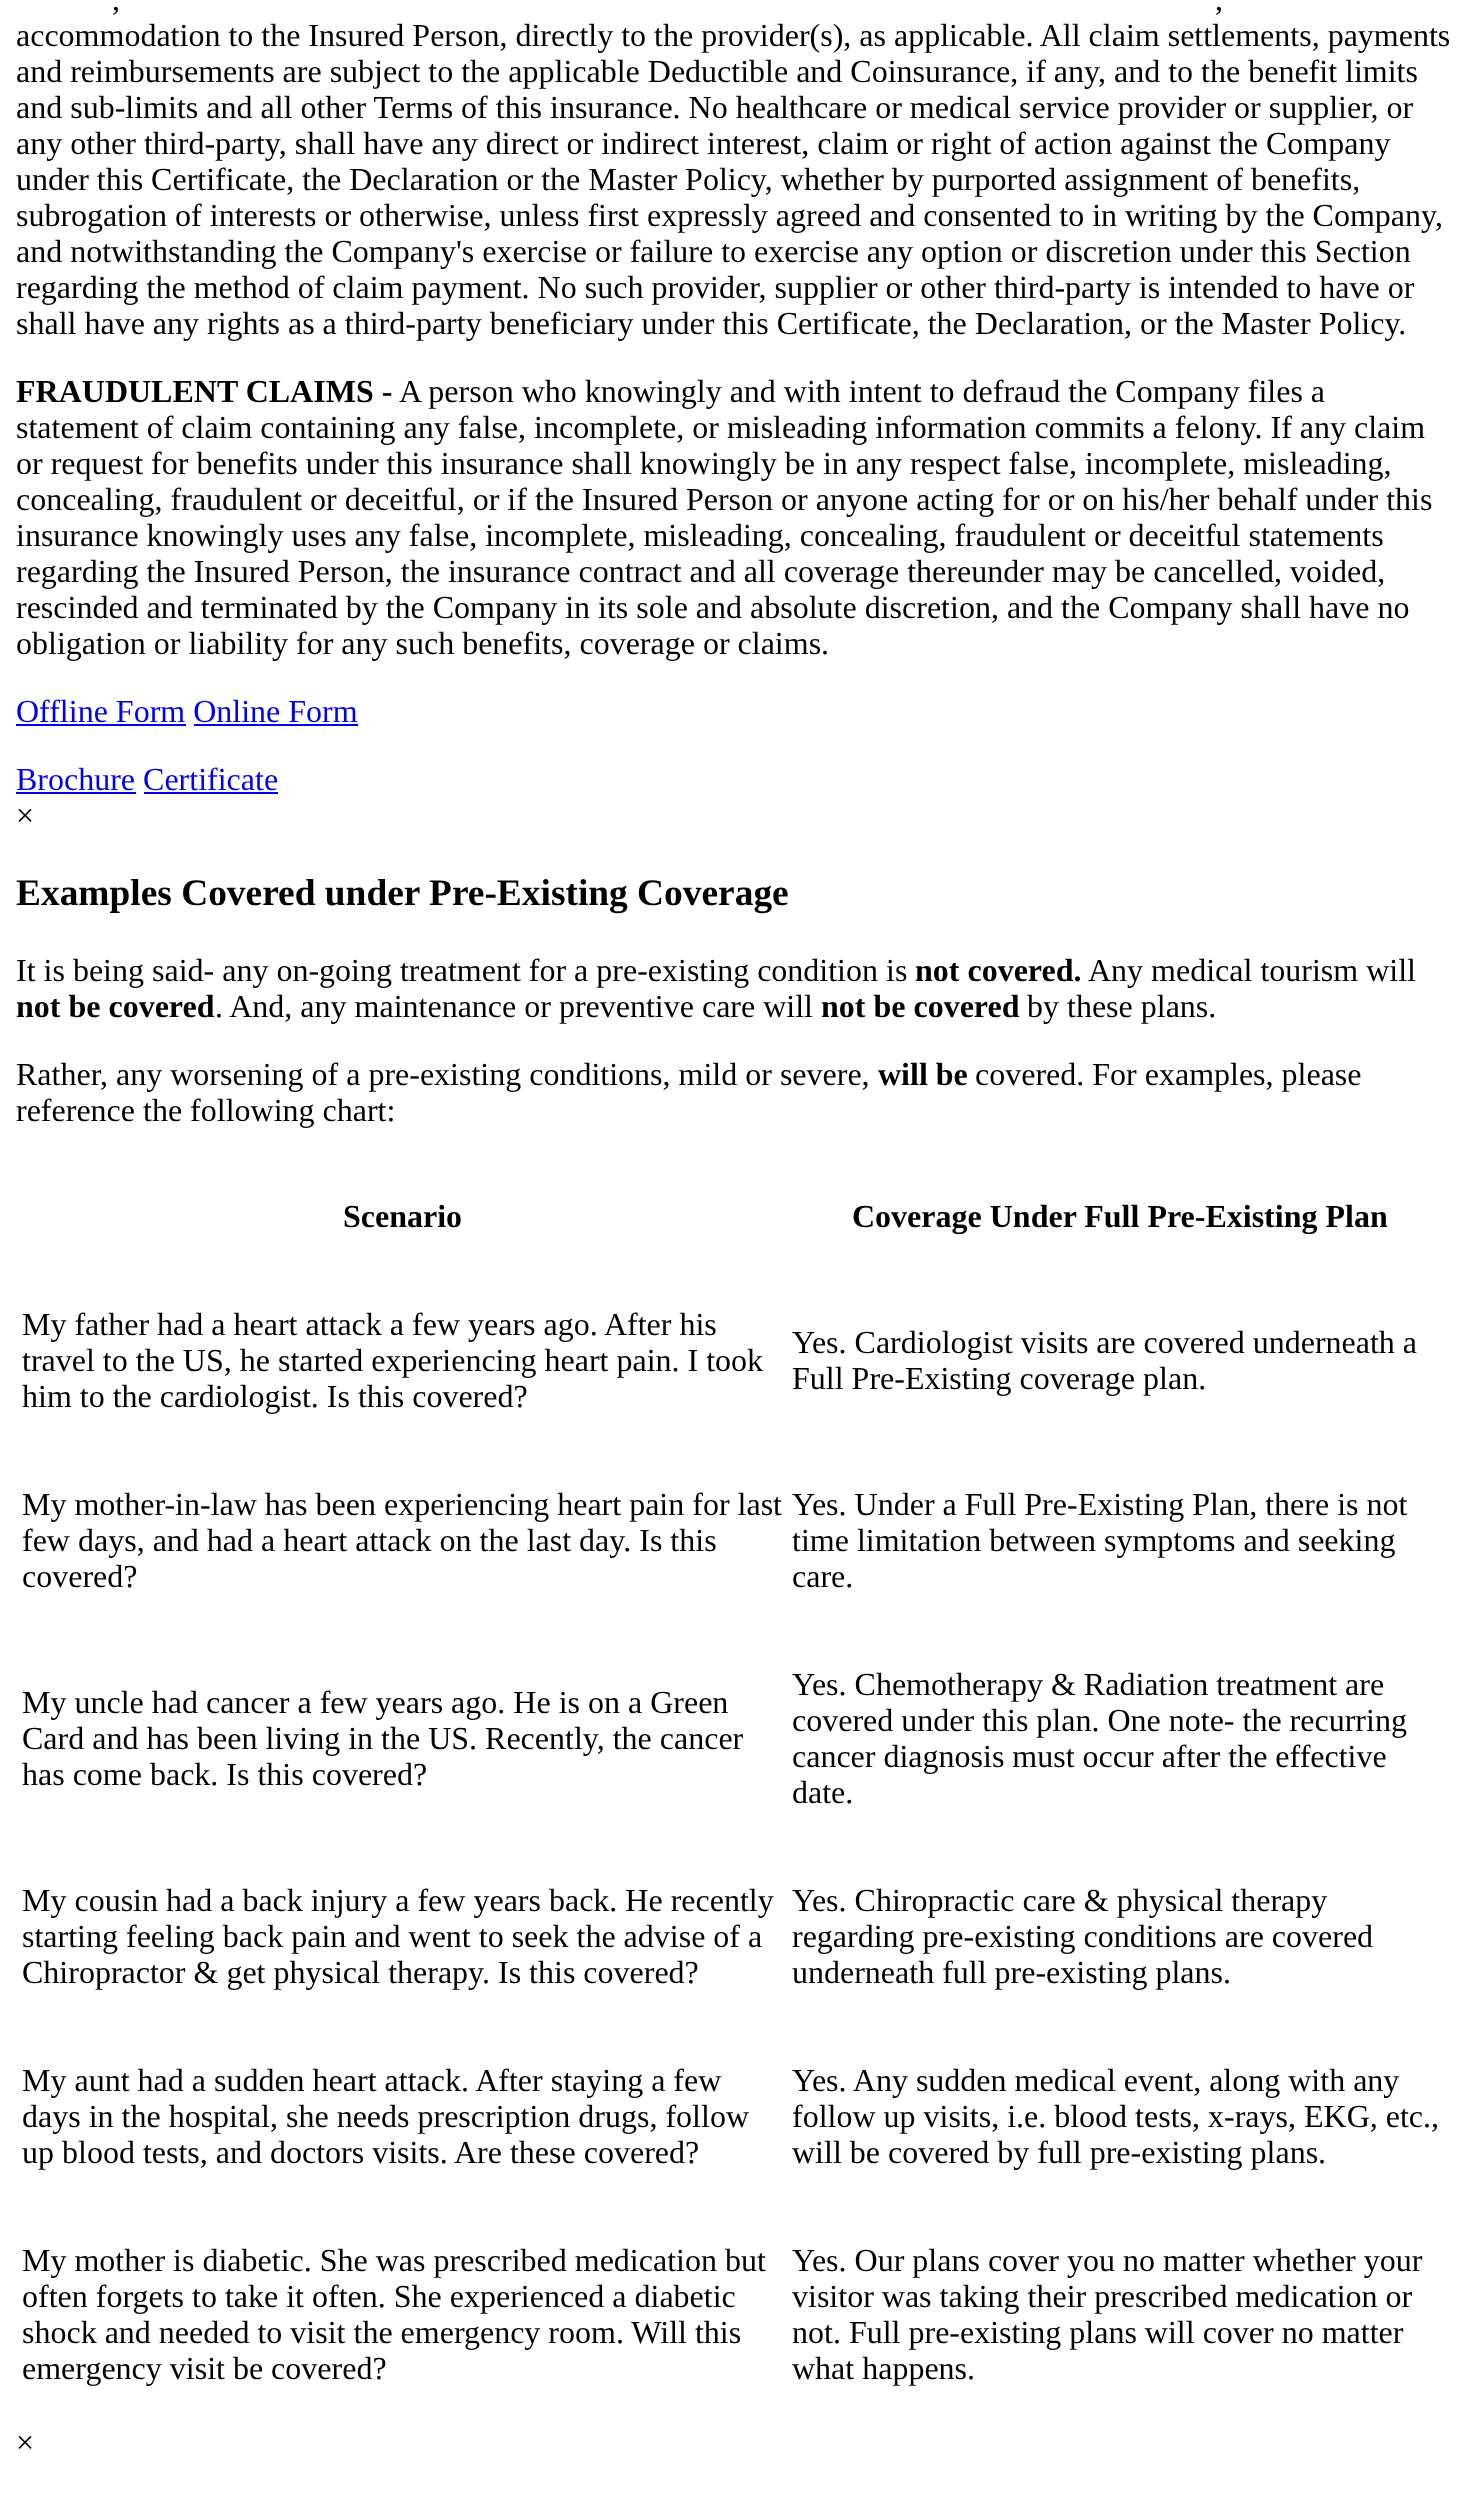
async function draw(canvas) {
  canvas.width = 1469;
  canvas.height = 2517;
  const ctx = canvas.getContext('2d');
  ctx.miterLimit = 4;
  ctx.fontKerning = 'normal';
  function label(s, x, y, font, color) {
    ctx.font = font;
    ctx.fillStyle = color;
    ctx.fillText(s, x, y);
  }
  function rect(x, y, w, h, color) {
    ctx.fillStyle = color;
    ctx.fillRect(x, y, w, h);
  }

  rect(0, 0, 1469, 2517, '#fff');
  label(',', 112, 10, '32px Liberation Serif', '#000');
  label(',', 1215, 10, '32px Liberation Serif', '#000');
  label('accommodation to the Insured Person, directly to the provider(s), as applicable. All claim settlements, payments', 16, 46, '32px Liberation Serif', '#000');
  label('and reimbursements are subject to the applicable Deductible and Coinsurance, if any, and to the benefit limits', 16, 82, '32px Liberation Serif', '#000');
  label('and sub-limits and all other Terms of this insurance. No healthcare or medical service provider or supplier, or', 16, 118, '32px Liberation Serif', '#000');
  label('any other third-party, shall have any direct or indirect interest, claim or right of action against the Company', 16, 154, '32px Liberation Serif', '#000');
  label('under this Certificate, the Declaration or the Master Policy, whether by purported assignment of benefits,', 16, 190, '32px Liberation Serif', '#000');
  label('subrogation of interests or otherwise, unless first expressly agreed and consented to in writing by the Company,', 16, 226, '32px Liberation Serif', '#000');
  label('and notwithstanding the Company\'s exercise or failure to exercise any option or discretion under this Section', 16, 262, '32px Liberation Serif', '#000');
  label('regarding the method of claim payment. No such provider, supplier or other third-party is intended to have or', 16, 298, '32px Liberation Serif', '#000');
  label('shall have any rights as a third-party beneficiary under this Certificate, the Declaration, or the Master Policy.', 16, 334, '32px Liberation Serif', '#000');
  label('FRAUDULENT CLAIMS -', 16, 402, 'bold 32px Liberation Serif', '#000');
  label('A person who knowingly and with intent to defraud the Company files a', 399, 402, '32px Liberation Serif', '#000');
  label('statement of claim containing any false, incomplete, or misleading information commits a felony. If any claim', 16, 438, '32px Liberation Serif', '#000');
  label('or request for benefits under this insurance shall knowingly be in any respect false, incomplete, misleading,', 16, 474, '32px Liberation Serif', '#000');
  label('concealing, fraudulent or deceitful, or if the Insured Person or anyone acting for or on his/her behalf under this', 16, 510, '32px Liberation Serif', '#000');
  label('insurance knowingly uses any false, incomplete, misleading, concealing, fraudulent or deceitful statements', 16, 546, '32px Liberation Serif', '#000');
  label('regarding the Insured Person, the insurance contract and all coverage thereunder may be cancelled, voided,', 16, 582, '32px Liberation Serif', '#000');
  label('rescinded and terminated by the Company in its sole and absolute discretion, and the Company shall have no', 16, 618, '32px Liberation Serif', '#000');
  label('obligation or liability for any such benefits, coverage or claims.', 16, 654, '32px Liberation Serif', '#000');
  label('Offline Form Online Form', 16, 722, '32px Liberation Serif', '#00e');
  rect(16, 724, 170, 2, '#00e');
  rect(194, 724, 164, 2, '#00e');
  label('Brochure Certificate', 16, 790, '32px Liberation Serif', '#00e');
  rect(16, 792, 120, 2, '#00e');
  rect(144, 792, 134, 2, '#00e');
  label('×', 16, 826, '32px Liberation Serif', '#000');
  label('Examples Covered under Pre-Existing Coverage', 16, 905, 'bold 37.4px Liberation Serif', '#000');
  label('It is being said- any on-going treatment for a pre-existing condition is', 16, 981, '32px Liberation Serif', '#000');
  label('not covered.', 915, 981, 'bold 32px Liberation Serif', '#000');
  label('Any medical tourism will', 1088, 981, '32px Liberation Serif', '#000');
  label('not be covered', 16, 1017, 'bold 32px Liberation Serif', '#000');
  label('. And, any maintenance or preventive care will', 215, 1017, '32px Liberation Serif', '#000');
  label('not be covered', 821, 1017, 'bold 32px Liberation Serif', '#000');
  label('by these plans.', 1027, 1017, '32px Liberation Serif', '#000');
  label('Rather, any worsening of a pre-existing conditions, mild or severe,', 16, 1085, '32px Liberation Serif', '#000');
  label('will be', 878, 1085, 'bold 32px Liberation Serif', '#000');
  label('covered. For examples, please', 975, 1085, '32px Liberation Serif', '#000');
  label('reference the following chart:', 16, 1121, '32px Liberation Serif', '#000');
  label('Scenario', 343, 1227, 'bold 32px Liberation Serif', '#000');
  label('Coverage Under Full Pre-Existing Plan', 852, 1227, 'bold 32px Liberation Serif', '#000');
  label('My father had a heart attack a few years ago. After his', 22, 1335, '32px Liberation Serif', '#000');
  label('travel to the US, he started experiencing heart pain. I took', 22, 1371, '32px Liberation Serif', '#000');
  label('him to the cardiologist. Is this covered?', 22, 1407, '32px Liberation Serif', '#000');
  label('Yes. Cardiologist visits are covered underneath a', 792, 1353, '32px Liberation Serif', '#000');
  label('Full Pre-Existing coverage plan.', 792, 1389, '32px Liberation Serif', '#000');
  label('My mother-in-law has been experiencing heart pain for last', 22, 1515, '32px Liberation Serif', '#000');
  label('few days, and had a heart attack on the last day. Is this', 22, 1551, '32px Liberation Serif', '#000');
  label('covered?', 22, 1587, '32px Liberation Serif', '#000');
  label('Yes. Under a Full Pre-Existing Plan, there is not', 792, 1515, '32px Liberation Serif', '#000');
  label('time limitation between symptoms and seeking', 792, 1551, '32px Liberation Serif', '#000');
  label('care.', 792, 1587, '32px Liberation Serif', '#000');
  label('My uncle had cancer a few years ago. He is on a Green', 22, 1713, '32px Liberation Serif', '#000');
  label('Card and has been living in the US. Recently, the cancer', 22, 1749, '32px Liberation Serif', '#000');
  label('has come back. Is this covered?', 22, 1785, '32px Liberation Serif', '#000');
  label('Yes. Chemotherapy & Radiation treatment are', 792, 1695, '32px Liberation Serif', '#000');
  label('covered under this plan. One note- the recurring', 792, 1731, '32px Liberation Serif', '#000');
  label('cancer diagnosis must occur after the effective', 792, 1767, '32px Liberation Serif', '#000');
  label('date.', 792, 1803, '32px Liberation Serif', '#000');
  label('My cousin had a back injury a few years back. He recently', 22, 1911, '32px Liberation Serif', '#000');
  label('starting feeling back pain and went to seek the advise of a', 22, 1947, '32px Liberation Serif', '#000');
  label('Chiropractor & get physical therapy. Is this covered?', 22, 1983, '32px Liberation Serif', '#000');
  label('Yes. Chiropractic care & physical therapy', 792, 1911, '32px Liberation Serif', '#000');
  label('regarding pre-existing conditions are covered', 792, 1947, '32px Liberation Serif', '#000');
  label('underneath full pre-existing plans.', 792, 1983, '32px Liberation Serif', '#000');
  label('My aunt had a sudden heart attack. After staying a few', 22, 2091, '32px Liberation Serif', '#000');
  label('days in the hospital, she needs prescription drugs, follow', 22, 2127, '32px Liberation Serif', '#000');
  label('up blood tests, and doctors visits. Are these covered?', 22, 2163, '32px Liberation Serif', '#000');
  label('Yes. Any sudden medical event, along with any', 792, 2091, '32px Liberation Serif', '#000');
  label('follow up visits, i.e. blood tests, x-rays, EKG, etc.,', 792, 2127, '32px Liberation Serif', '#000');
  label('will be covered by full pre-existing plans.', 792, 2163, '32px Liberation Serif', '#000');
  label('My mother is diabetic. She was prescribed medication but', 22, 2271, '32px Liberation Serif', '#000');
  label('often forgets to take it often. She experienced a diabetic', 22, 2307, '32px Liberation Serif', '#000');
  label('shock and needed to visit the emergency room. Will this', 22, 2343, '32px Liberation Serif', '#000');
  label('emergency visit be covered?', 22, 2379, '32px Liberation Serif', '#000');
  label('Yes. Our plans cover you no matter whether your', 792, 2271, '32px Liberation Serif', '#000');
  label('visitor was taking their prescribed medication or', 792, 2307, '32px Liberation Serif', '#000');
  label('not. Full pre-existing plans will cover no matter', 792, 2343, '32px Liberation Serif', '#000');
  label('what happens.', 792, 2379, '32px Liberation Serif', '#000');
  label('×', 16, 2453, '32px Liberation Serif', '#000');
}

draw(document.querySelector('canvas'));
